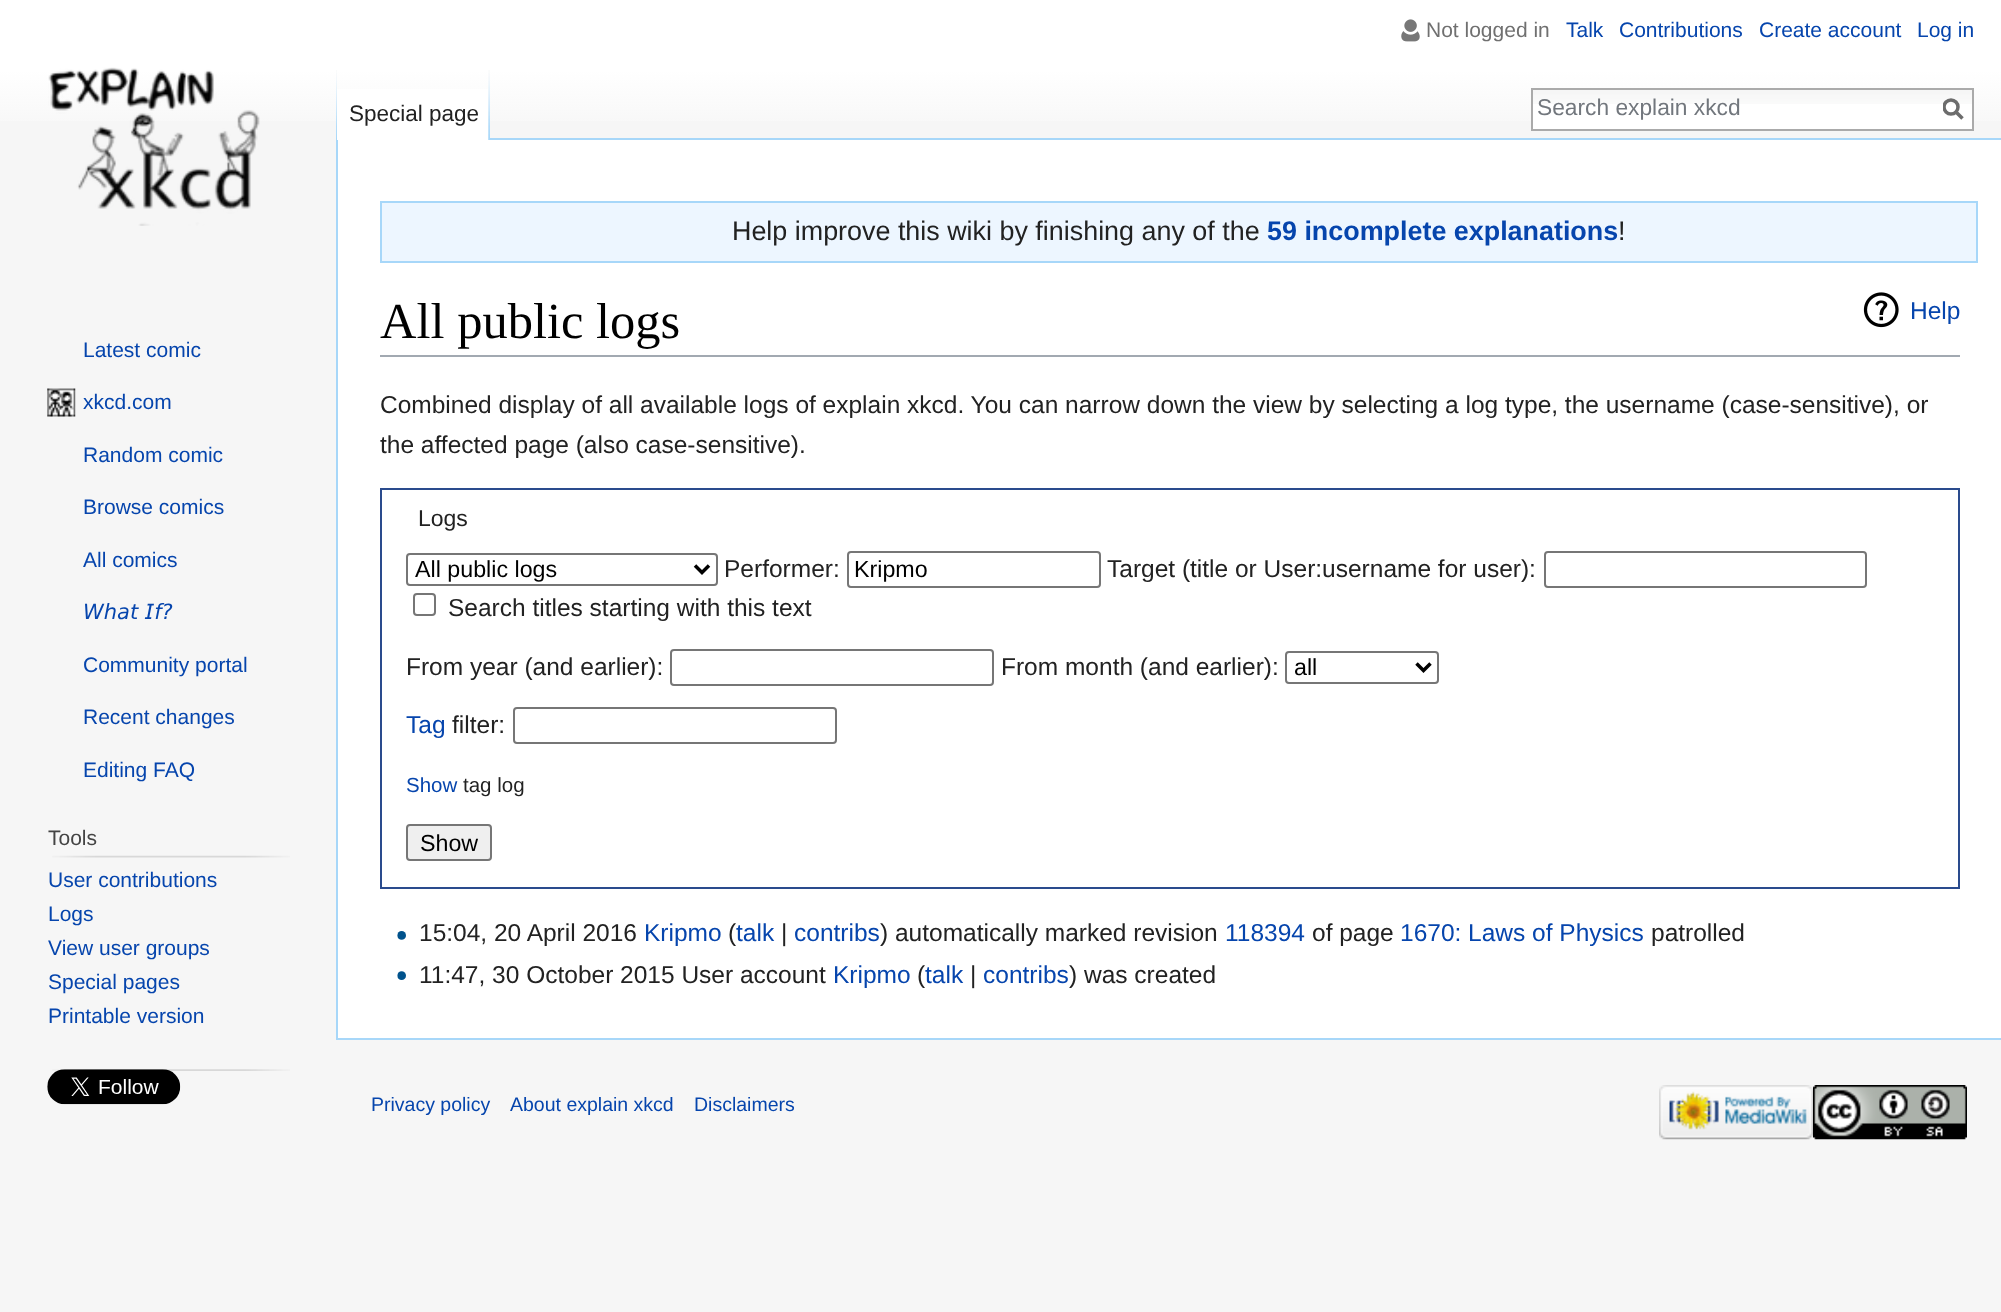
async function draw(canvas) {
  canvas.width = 2001;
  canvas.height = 1312;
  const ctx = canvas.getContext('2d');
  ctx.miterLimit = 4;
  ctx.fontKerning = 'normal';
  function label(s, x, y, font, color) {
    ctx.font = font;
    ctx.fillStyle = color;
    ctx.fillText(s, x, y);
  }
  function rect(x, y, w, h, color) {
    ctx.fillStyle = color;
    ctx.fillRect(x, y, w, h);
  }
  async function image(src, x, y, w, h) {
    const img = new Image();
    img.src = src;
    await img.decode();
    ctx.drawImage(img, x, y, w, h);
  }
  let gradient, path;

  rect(0, 0, 2001, 1312, '#f6f6f6');
  gradient = ctx.createLinearGradient(1001, 0, 1001, 140);
  gradient.addColorStop(0.5, '#fff');
  gradient.addColorStop(1, '#f6f6f6');
  ctx.fillStyle = gradient;
  ctx.fillRect(0, 0, 2001, 121);
  await image('assets/img1.png', 1401, 19, 19, 23);
  label('Not logged in', 1426, 37, '21px Liberation Sans', '#707070');
  label('Talk', 1566, 37, '21px Liberation Sans', '#0645ad');
  label('Contributions', 1619, 37, '21px Liberation Sans', '#0645ad');
  label('Create account', 1759, 37, '21px Liberation Sans', '#0645ad');
  label('Log in', 1917, 37, '21px Liberation Sans', '#0645ad');
  await image('assets/img2.png', 336, 70, 1, 68);
  rect(336, 1038, 1665, 2, '#a7d7f9');
  rect(336, 138, 2, 902, '#a7d7f9');
  rect(337, 89, 152, 51, '#fff');
  await image('assets/img3.png', 488, 70, 2, 70);
  label('Special page', 349, 121, '22.5px Liberation Sans', '#222');
  rect(1533, 104, 439, 25, '#fff');
  await image('assets/img4.png', 1533, 90, 439, 14);
  ctx.strokeStyle = '#aaa';
  ctx.lineWidth = 2;
  ctx.strokeRect(1532, 89, 441, 41);
  label('Search explain xkcd', 1537, 115, '22.75px Liberation Sans', '#72777d');
  path = new Path2D('M1962.5 118.5L1955.5 111.5');
  ctx.strokeStyle = '#6c6c6c';
  ctx.lineWidth = 3.5;
  ctx.stroke(path);
  ctx.save();
  ctx.beginPath();
  ctx.rect(1943, 98, 21, 23);
  ctx.clip();
  ctx.beginPath();
  ctx.arc(1951, 107, 7, 0, 2 * Math.PI);
  ctx.stroke();
  ctx.restore();
  await image('assets/img5.png', 48, 67, 212, 159);
  label('Latest comic', 83, 357, '21px Liberation Sans', '#0645ad');
  await image('assets/img6.png', 47, 388, 29, 29);
  label('xkcd.com', 83, 409, '21px Liberation Sans', '#0645ad');
  label('Random comic', 83, 462, '21px Liberation Sans', '#0645ad');
  label('Browse comics', 83, 514, '21px Liberation Sans', '#0645ad');
  label('All comics', 83, 567, '21px Liberation Sans', '#0645ad');
  label('𝘞𝘩𝘢𝘵 𝘐𝘧?', 83, 619, 'italic 21px DejaVu Sans', '#0645ad');
  label('Community portal', 83, 672, '21px Liberation Sans', '#0645ad');
  label('Recent changes', 83, 724, '21px Liberation Sans', '#0645ad');
  label('Editing FAQ', 83, 777, '21px Liberation Sans', '#0645ad');
  label('Tools', 48, 845, '21px Liberation Sans', '#444');
  await image('assets/img7.png', 52, 855, 238, 3);
  label('User contributions', 48, 887, '21px Liberation Sans', '#0645ad');
  label('Logs', 48, 921, '21px Liberation Sans', '#0645ad');
  label('View user groups', 48, 955, '21px Liberation Sans', '#0645ad');
  label('Special pages', 48, 989, '21px Liberation Sans', '#0645ad');
  label('Printable version', 48, 1023, '21px Liberation Sans', '#0645ad');
  await image('assets/img8.png', 52, 1069, 238, 2);
  await image('assets/img9.png', 47, 1069, 134, 36);
  rect(338, 140, 1663, 898, '#fff');
  rect(490, 138, 1511, 2, '#a7d7f9');
  ctx.fillStyle = '#edf6ff';
  ctx.beginPath();
  ctx.rect(381, 202, 1596, 60);
  ctx.fill();
  ctx.strokeStyle = '#a7d7f9';
  ctx.lineWidth = 2;
  ctx.stroke();
  label('Help improve this wiki by finishing any of the', 732, 240, '26.9px Liberation Sans', '#222');
  label('59 incomplete explanations', 1267, 240, 'bold 26.9px Liberation Sans', '#0645ad');
  label('!', 1618, 240, '26.9px Liberation Sans', '#222');
  rect(380, 355, 1580, 2, '#a2a9b1');
  label('All public logs', 380, 338, '50.5px Liberation Serif', '#000');
  await image('assets/img10.png', 1863, 292, 36, 36);
  label('Help', 1910, 319, '24.5px Liberation Sans', '#0645ad');
  label('Combined display of all available logs of explain xkcd. You can narrow down the view by selecting a log type, the username (case-sensitive), or', 380, 413, '24.5px Liberation Sans', '#222');
  label('the affected page (also case-sensitive).', 380, 453, '24.5px Liberation Sans', '#222');
  ctx.strokeStyle = '#2a4b8d';
  ctx.strokeRect(381, 489, 1578, 399);
  label('Logs', 418, 526, '23px Liberation Sans', '#222');
  ctx.beginPath();
  ctx.roundRect(407, 554, 310, 31, 3);
  ctx.strokeStyle = '#767676';
  ctx.stroke();
  path = new Path2D('M695 565.5L702 572.5L709 565.5');
  ctx.strokeStyle = '#000';
  ctx.lineWidth = 3.5;
  ctx.stroke(path);
  label('All public logs', 415, 577, '23.25px Liberation Sans', '#000');
  label('Performer:', 724, 577, '24.5px Liberation Sans', '#222');
  ctx.beginPath();
  ctx.roundRect(848, 552, 252, 35, 3);
  ctx.strokeStyle = '#767676';
  ctx.lineWidth = 2;
  ctx.stroke();
  label('Kripmo', 854, 577, '23.25px Liberation Sans', '#000');
  label('Target (title or User:username for user):', 1107, 577, '24.5px Liberation Sans', '#222');
  ctx.beginPath();
  ctx.roundRect(1545, 552, 321, 35, 3);
  ctx.stroke();
  ctx.beginPath();
  ctx.roundRect(414, 594, 21, 21, 3);
  ctx.stroke();
  label('Search titles starting with this text', 448, 616, '24.5px Liberation Sans', '#222');
  label('From year (and earlier):', 406, 675, '24.5px Liberation Sans', '#222');
  ctx.beginPath();
  ctx.roundRect(671, 650, 322, 35, 3);
  ctx.stroke();
  label('From month (and earlier):', 1001, 675, '24.5px Liberation Sans', '#222');
  ctx.beginPath();
  ctx.roundRect(1286, 652, 152, 31, 3);
  ctx.stroke();
  path = new Path2D('M1416.5 663.5L1423.5 670.5L1430.5 663.5');
  ctx.strokeStyle = '#000';
  ctx.lineWidth = 3.5;
  ctx.stroke(path);
  label('all', 1294, 675, '23.25px Liberation Sans', '#000');
  label('Tag', 406, 733, '24.5px Liberation Sans', '#0645ad');
  label('filter:', 452, 733, '24.5px Liberation Sans', '#222');
  ctx.beginPath();
  ctx.roundRect(514, 708, 322, 35, 3);
  ctx.strokeStyle = '#767676';
  ctx.lineWidth = 2;
  ctx.stroke();
  label('Show', 406, 792, '20.5px Liberation Sans', '#0645ad');
  label('tag log', 463, 792, '20.5px Liberation Sans', '#222');
  ctx.fillStyle = '#efefef';
  ctx.beginPath();
  ctx.roundRect(407, 825, 84, 35, 3);
  ctx.fill();
  ctx.stroke();
  label('Show', 420, 851, '23.25px Liberation Sans', '#000');
  await image('assets/img11.png', 397, 931, 9, 9);
  label('15:04, 20 April 2016', 419, 941, '24.5px Liberation Sans', '#222');
  label('Kripmo', 644, 941, '24.5px Liberation Sans', '#0645ad');
  label('(', 728, 941, '24.5px Liberation Sans', '#222');
  label('talk', 736, 941, '24.5px Liberation Sans', '#0645ad');
  label('|', 781, 941, '24.5px Liberation Sans', '#222');
  label('contribs', 794, 941, '24.5px Liberation Sans', '#0645ad');
  label(') automatically marked revision', 880, 941, '24.5px Liberation Sans', '#222');
  label('118394', 1225, 941, '24.5px Liberation Sans', '#0645ad');
  label('of page', 1312, 941, '24.5px Liberation Sans', '#222');
  label('1670: Laws of Physics', 1400, 941, '24.5px Liberation Sans', '#0645ad');
  label('patrolled', 1651, 941, '24.5px Liberation Sans', '#222');
  await image('assets/img12.png', 397, 971, 9, 9);
  label('11:47, 30 October 2015 User account', 419, 983, '24.5px Liberation Sans', '#222');
  label('Kripmo', 833, 983, '24.5px Liberation Sans', '#0645ad');
  label('(', 917, 983, '24.5px Liberation Sans', '#222');
  label('talk', 925, 983, '24.5px Liberation Sans', '#0645ad');
  label('|', 970, 983, '24.5px Liberation Sans', '#222');
  label('contribs', 983, 983, '24.5px Liberation Sans', '#0645ad');
  label(') was created', 1069, 983, '24.5px Liberation Sans', '#222');
  label('Privacy policy', 371, 1111, '19.5px Liberation Sans', '#0645ad');
  label('About explain xkcd', 510, 1111, '19.5px Liberation Sans', '#0645ad');
  label('Disclaimers', 694, 1111, '19.5px Liberation Sans', '#0645ad');
  await image('assets/img13.png', 1659, 1085, 154, 55);
  await image('assets/img14.png', 1813, 1085, 154, 55);
}

draw(document.querySelector('canvas'));
